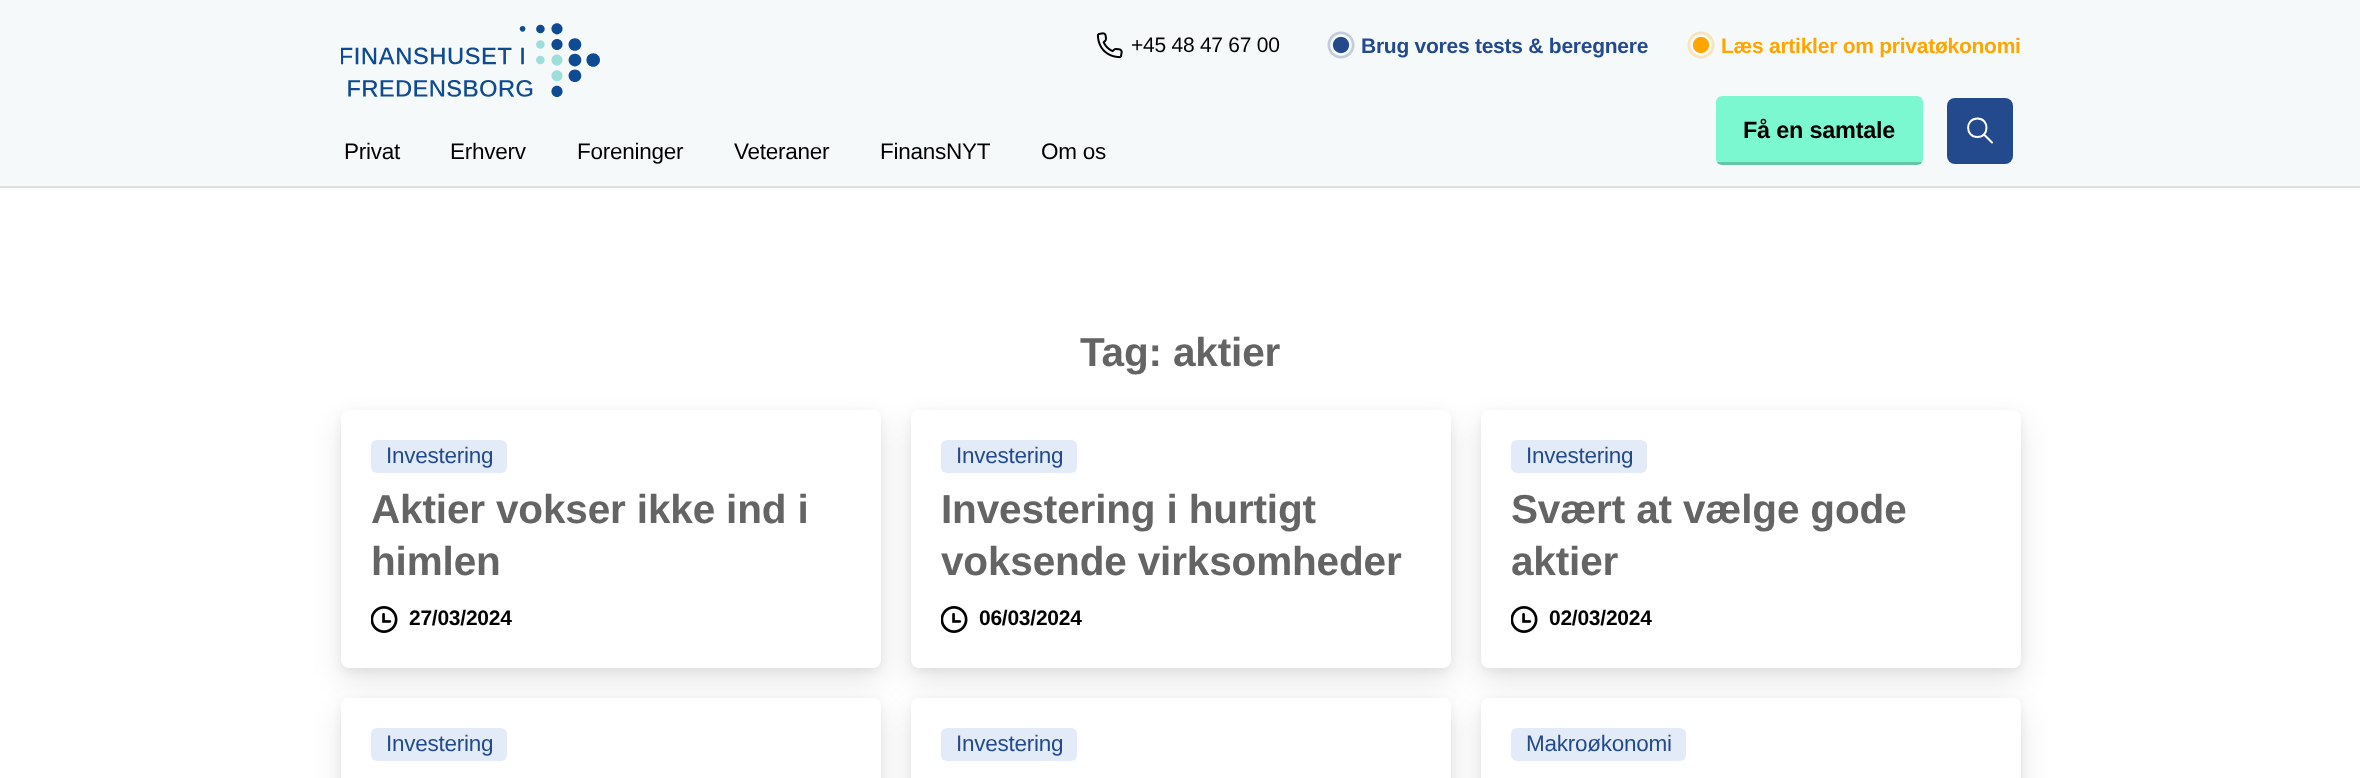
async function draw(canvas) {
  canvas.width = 2360;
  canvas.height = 778;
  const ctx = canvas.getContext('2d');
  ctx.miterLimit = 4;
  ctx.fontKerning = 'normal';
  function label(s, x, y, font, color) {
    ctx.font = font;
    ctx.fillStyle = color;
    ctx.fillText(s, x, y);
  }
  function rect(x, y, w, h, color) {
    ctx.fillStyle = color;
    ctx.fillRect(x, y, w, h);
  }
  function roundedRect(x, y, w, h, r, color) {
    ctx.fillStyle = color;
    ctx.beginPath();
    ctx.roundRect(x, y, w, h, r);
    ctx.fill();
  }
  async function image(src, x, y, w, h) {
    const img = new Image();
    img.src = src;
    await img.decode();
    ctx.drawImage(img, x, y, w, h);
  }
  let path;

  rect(0, 0, 2360, 778, '#fff');
  rect(0, 0, 2360, 186, '#f6f9f9');
  await image('assets/img1.png', 341, 23, 259, 74);
  await image('assets/img2.png', 1096, 32, 27, 27);
  ctx.letterSpacing = '-0.25px';
  label('+45 48 47 67 00', 1131, 52, '21px Arimo', '#000');
  await image('assets/img3.png', 1327, 31, 28, 28);
  label('Brug vores tests & beregnere', 1361, 53, 'bold 21px Arimo', '#234a8d');
  await image('assets/img4.png', 1687, 31, 28, 28);
  label('Læs artikler om privatøkonomi', 1721, 53, 'bold 21px Arimo', '#ffa500');
  rect(0, 186, 2360, 2, '#e0e0e0');
  roundedRect(1716, 96, 207, 69, 6, '#7cf8d1');
  label('Få en samtale', 1743, 138, 'bold 23.5px Arimo', '#000');
  ctx.save();
  ctx.beginPath();
  ctx.roundRect(1716, 96, 207, 69, 6);
  ctx.clip();
  roundedRect(1716, 162, 207, 3, 1.5, '#00000033');
  ctx.restore();
  roundedRect(1947, 98, 66, 66, 8, '#234a8d');
  path = new Path2D('M1977.5 137C1989.5 137 1989.5 118.5 1977.5 118.5C1965 118.5 1965 137 1977.5 137ZM1984 134.5L1992 142.5');
  ctx.strokeStyle = '#fff';
  ctx.lineWidth = 2;
  ctx.lineCap = 'round';
  ctx.lineJoin = 'round';
  ctx.stroke(path);
  label('Privat', 344, 159, '22.5px Arimo', '#000');
  label('Erhverv', 450, 159, '22.5px Arimo', '#000');
  label('Foreninger', 577, 159, '22.5px Arimo', '#000');
  label('Veteraner', 734, 159, '22.5px Arimo', '#000');
  label('FinansNYT', 880, 159, '22.5px Arimo', '#000');
  label('Om os', 1041, 159, '22.5px Arimo', '#000');
  ctx.letterSpacing = '-0.15px';
  label('Tag: aktier', 1080, 366, 'bold 40.5px Arimo', '#646464');
  ctx.fillStyle = '#0000001a';
  ctx.filter = 'blur(14.5px)';
  ctx.beginPath();
  ctx.roundRect(341, 422, 540, 258, 8);
  ctx.fill();
  ctx.filter = 'none';
  ctx.fillStyle = '#0000000d';
  ctx.filter = 'blur(4.5px)';
  ctx.beginPath();
  ctx.roundRect(341, 413, 540, 258, 8);
  ctx.fill();
  ctx.filter = 'none';
  roundedRect(341, 410, 540, 258, 8, '#fff');
  roundedRect(371, 440, 136, 33, 6, '#e3ebf8');
  ctx.letterSpacing = '-0.25px';
  label('Investering', 386, 463, '22.5px Arimo', '#234a8d');
  ctx.letterSpacing = '-0.15px';
  label('Aktier vokser ikke ind i', 371, 523, 'bold 40.5px Arimo', '#646464');
  label('himlen', 371, 575, 'bold 40.5px Arimo', '#646464');
  await image('assets/img5.png', 371, 606, 27, 27);
  ctx.letterSpacing = '-0.25px';
  label('27/03/2024', 409, 625, 'bold 21px Arimo', '#000');
  ctx.fillStyle = '#0000001a';
  ctx.filter = 'blur(14.5px)';
  ctx.beginPath();
  ctx.roundRect(911, 422, 540, 258, 8);
  ctx.fill();
  ctx.filter = 'none';
  ctx.fillStyle = '#0000000d';
  ctx.filter = 'blur(4.5px)';
  ctx.beginPath();
  ctx.roundRect(911, 413, 540, 258, 8);
  ctx.fill();
  ctx.filter = 'none';
  roundedRect(911, 410, 540, 258, 8, '#fff');
  roundedRect(941, 440, 136, 33, 6, '#e3ebf8');
  label('Investering', 956, 463, '22.5px Arimo', '#234a8d');
  ctx.letterSpacing = '-0.15px';
  label('Investering i hurtigt', 941, 523, 'bold 40.5px Arimo', '#646464');
  label('voksende virksomheder', 941, 575, 'bold 40.5px Arimo', '#646464');
  await image('assets/img5.png', 941, 606, 27, 27);
  ctx.letterSpacing = '-0.25px';
  label('06/03/2024', 979, 625, 'bold 21px Arimo', '#000');
  ctx.fillStyle = '#0000001a';
  ctx.filter = 'blur(14.5px)';
  ctx.beginPath();
  ctx.roundRect(1481, 422, 540, 258, 8);
  ctx.fill();
  ctx.filter = 'none';
  ctx.fillStyle = '#0000000d';
  ctx.filter = 'blur(4.5px)';
  ctx.beginPath();
  ctx.roundRect(1481, 413, 540, 258, 8);
  ctx.fill();
  ctx.filter = 'none';
  roundedRect(1481, 410, 540, 258, 8, '#fff');
  roundedRect(1511, 440, 136, 33, 6, '#e3ebf8');
  label('Investering', 1526, 463, '22.5px Arimo', '#234a8d');
  ctx.letterSpacing = '-0.15px';
  label('Svært at vælge gode', 1511, 523, 'bold 40.5px Arimo', '#646464');
  label('aktier', 1511, 575, 'bold 40.5px Arimo', '#646464');
  await image('assets/img5.png', 1511, 606, 27, 27);
  ctx.letterSpacing = '-0.25px';
  label('02/03/2024', 1549, 625, 'bold 21px Arimo', '#000');
  ctx.fillStyle = '#0000001a';
  ctx.filter = 'blur(14.5px)';
  ctx.beginPath();
  ctx.roundRect(341, 710, 540, 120, 8);
  ctx.fill();
  ctx.filter = 'none';
  ctx.fillStyle = '#0000000d';
  ctx.filter = 'blur(4.5px)';
  ctx.beginPath();
  ctx.roundRect(341, 701, 540, 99, 8);
  ctx.fill();
  ctx.filter = 'none';
  roundedRect(341, 698, 540, 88, 8, '#fff');
  roundedRect(371, 728, 136, 33, 6, '#e3ebf8');
  label('Investering', 386, 751, '22.5px Arimo', '#234a8d');
  ctx.fillStyle = '#0000001a';
  ctx.filter = 'blur(14.5px)';
  ctx.beginPath();
  ctx.roundRect(911, 710, 540, 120, 8);
  ctx.fill();
  ctx.filter = 'none';
  ctx.fillStyle = '#0000000d';
  ctx.filter = 'blur(4.5px)';
  ctx.beginPath();
  ctx.roundRect(911, 701, 540, 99, 8);
  ctx.fill();
  ctx.filter = 'none';
  roundedRect(911, 698, 540, 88, 8, '#fff');
  roundedRect(941, 728, 136, 33, 6, '#e3ebf8');
  label('Investering', 956, 751, '22.5px Arimo', '#234a8d');
  ctx.fillStyle = '#0000001a';
  ctx.filter = 'blur(14.5px)';
  ctx.beginPath();
  ctx.roundRect(1481, 710, 540, 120, 8);
  ctx.fill();
  ctx.filter = 'none';
  ctx.fillStyle = '#0000000d';
  ctx.filter = 'blur(4.5px)';
  ctx.beginPath();
  ctx.roundRect(1481, 701, 540, 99, 8);
  ctx.fill();
  ctx.filter = 'none';
  roundedRect(1481, 698, 540, 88, 8, '#fff');
  roundedRect(1511, 728, 175, 33, 6, '#e3ebf8');
  label('Makroøkonomi', 1526, 751, '22.5px Arimo', '#234a8d');
}

draw(document.querySelector('canvas'));
